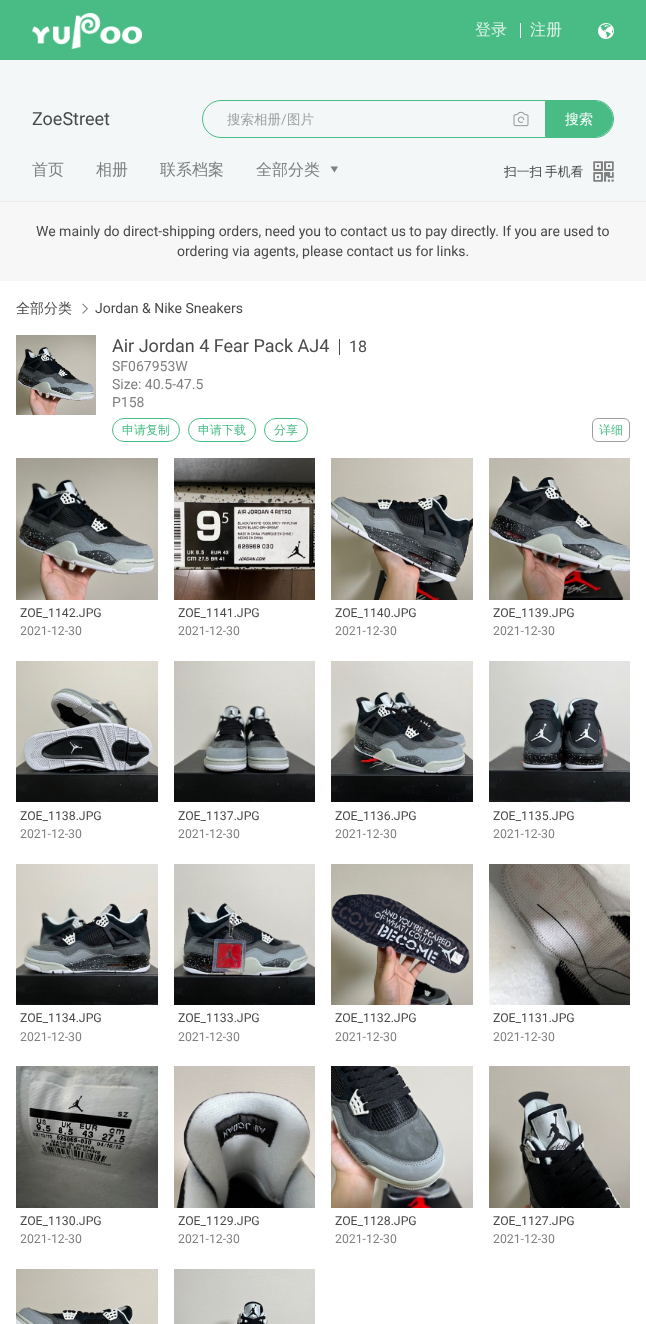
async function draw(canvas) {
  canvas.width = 646;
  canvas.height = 1324;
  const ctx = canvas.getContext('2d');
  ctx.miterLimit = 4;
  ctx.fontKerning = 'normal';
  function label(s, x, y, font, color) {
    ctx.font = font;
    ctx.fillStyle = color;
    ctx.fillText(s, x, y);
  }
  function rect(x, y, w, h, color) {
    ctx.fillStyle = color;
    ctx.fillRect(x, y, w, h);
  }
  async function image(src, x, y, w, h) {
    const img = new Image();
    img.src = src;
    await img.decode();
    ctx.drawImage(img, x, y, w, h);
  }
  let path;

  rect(0, 0, 646, 1324, '#fff');
  rect(0, 0, 646, 60, '#49bc85');
  await image('assets/img1.png', 32, 13, 110, 36);
  label('登录', 475, 35, '500 16px WenQuanYi Zen Hei', '#dbf2e7');
  rect(520, 23, 1, 15, '#fff');
  label('注册', 530, 35, '500 16px WenQuanYi Zen Hei', '#dbf2e7');
  await image('assets/img2.png', 598, 23, 16, 16);
  rect(0, 60, 646, 141, '#f3f7f7');
  label('ZoeStreet', 32, 125, '18px Roboto', '#494949');
  ctx.beginPath();
  ctx.roundRect(202.5, 100.5, 411, 37, 18.5);
  ctx.strokeStyle = '#49bc85';
  ctx.stroke();
  label('搜索相册', 227, 124, '500 13.5px WenQuanYi Zen Hei', '#9f9f9f');
  label('/', 281, 124, '13.5px Roboto', '#9f9f9f');
  label('图片', 287, 124, '500 13.5px WenQuanYi Zen Hei', '#9f9f9f');
  await image('assets/img3.png', 513, 111, 16, 16);
  ctx.fillStyle = '#49bc85';
  ctx.beginPath();
  ctx.roundRect(545.5, 101.5, 67, 35, [0, 17.5, 17.5, 0]);
  ctx.fill();
  ctx.stroke();
  label('搜', 565, 124, '14px Noto Sans', '#fff');
  label('索', 579, 124, '500 14px WenQuanYi Zen Hei', '#fff');
  label('首页', 32, 175, '500 16px WenQuanYi Zen Hei', '#7f7f7f');
  label('相册', 96, 175, '500 16px WenQuanYi Zen Hei', '#7f7f7f');
  label('联系档案', 160, 175, '500 16px WenQuanYi Zen Hei', '#7f7f7f');
  label('全部分类', 256, 175, '500 16px WenQuanYi Zen Hei', '#7f7f7f');
  path = new Path2D('M334.5 172.5L330.5 166.5H338Z');
  ctx.fill(path);
  ctx.wordSpacing = '-1px';
  label('扫一扫 手机看', 504, 176, '500 12.75px WenQuanYi Zen Hei', '#494949');
  await image('assets/img4.png', 593, 161, 21, 21);
  rect(0, 202, 646, 79, '#f7f7f7');
  rect(0, 201, 646, 1, '#ececec');
  ctx.wordSpacing = '0px';
  label('We mainly do direct-shipping orders, need you to contact us to pay directly. If you are used to', 36, 236, '14px Roboto', '#494949');
  label('ordering via agents, please contact us for links.', 177, 256, '14px Roboto', '#494949');
  label('全部分类', 16, 313, '500 14px WenQuanYi Zen Hei', '#494949');
  await image('assets/img5.png', 82, 303, 6, 11);
  label('Jordan & Nike Sneakers', 95, 313, '14px Roboto', '#494949');
  await image('assets/img6.png', 16, 335, 80, 80);
  label('Air Jordan 4 Fear Pack AJ4', 112, 352, '18px Roboto', '#494949');
  rect(339, 339, 1, 16, '#494949');
  label('18', 349, 352, '16px Roboto', '#494949');
  label('SF067953W', 112, 371, '14px Roboto', '#7f7f7f');
  label('Size: 40.5-47.5', 112, 389, '14px Roboto', '#7f7f7f');
  label('P158', 112, 407, '14px Roboto', '#7f7f7f');
  ctx.beginPath();
  ctx.roundRect(112.5, 418.5, 67, 23, 11.5);
  ctx.stroke();
  label('申请复制', 122, 434, '500 12px WenQuanYi Zen Hei', '#49bc85');
  ctx.beginPath();
  ctx.roundRect(188.5, 418.5, 67, 23, 11.5);
  ctx.stroke();
  label('申请下载', 198, 434, '500 12px WenQuanYi Zen Hei', '#49bc85');
  ctx.beginPath();
  ctx.roundRect(264.5, 418.5, 43, 23, 11.5);
  ctx.stroke();
  label('分享', 274, 434, '500 12px WenQuanYi Zen Hei', '#49bc85');
  ctx.beginPath();
  ctx.roundRect(592.5, 418.5, 37, 23, 5.5);
  ctx.strokeStyle = '#9f9f9f';
  ctx.stroke();
  label('详细', 599, 434, '500 12px WenQuanYi Zen Hei', '#49bc85');
  await image('assets/img7.png', 16, 458, 142, 142);
  label('ZOE_1142.JPG', 20, 617, '12.25px Roboto', '#494949');
  label('2021-12-30', 20, 635, '12.25px Roboto', '#7f7f7f');
  await image('assets/img8.png', 174, 458, 141, 142);
  label('ZOE_1141.JPG', 178, 617, '12.25px Roboto', '#494949');
  label('2021-12-30', 178, 635, '12.25px Roboto', '#7f7f7f');
  await image('assets/img9.png', 331, 458, 142, 142);
  label('ZOE_1140.JPG', 335, 617, '12.25px Roboto', '#494949');
  label('2021-12-30', 335, 635, '12.25px Roboto', '#7f7f7f');
  await image('assets/img10.png', 489, 458, 141, 142);
  label('ZOE_1139.JPG', 493, 617, '12.25px Roboto', '#494949');
  label('2021-12-30', 493, 635, '12.25px Roboto', '#7f7f7f');
  await image('assets/img11.png', 16, 661, 142, 141);
  label('ZOE_1138.JPG', 20, 820, '12.25px Roboto', '#494949');
  label('2021-12-30', 20, 838, '12.25px Roboto', '#7f7f7f');
  await image('assets/img12.png', 174, 661, 141, 141);
  label('ZOE_1137.JPG', 178, 820, '12.25px Roboto', '#494949');
  label('2021-12-30', 178, 838, '12.25px Roboto', '#7f7f7f');
  await image('assets/img13.png', 331, 661, 142, 141);
  label('ZOE_1136.JPG', 335, 820, '12.25px Roboto', '#494949');
  label('2021-12-30', 335, 838, '12.25px Roboto', '#7f7f7f');
  await image('assets/img14.png', 489, 661, 141, 141);
  label('ZOE_1135.JPG', 493, 820, '12.25px Roboto', '#494949');
  label('2021-12-30', 493, 838, '12.25px Roboto', '#7f7f7f');
  await image('assets/img15.png', 16, 864, 142, 141);
  label('ZOE_1134.JPG', 20, 1022, '12.25px Roboto', '#494949');
  label('2021-12-30', 20, 1041, '12.25px Roboto', '#7f7f7f');
  await image('assets/img16.png', 174, 864, 141, 141);
  label('ZOE_1133.JPG', 178, 1022, '12.25px Roboto', '#494949');
  label('2021-12-30', 178, 1041, '12.25px Roboto', '#7f7f7f');
  await image('assets/img17.png', 331, 864, 142, 141);
  label('ZOE_1132.JPG', 335, 1022, '12.25px Roboto', '#494949');
  label('2021-12-30', 335, 1041, '12.25px Roboto', '#7f7f7f');
  await image('assets/img18.png', 489, 864, 141, 141);
  label('ZOE_1131.JPG', 493, 1022, '12.25px Roboto', '#494949');
  label('2021-12-30', 493, 1041, '12.25px Roboto', '#7f7f7f');
  await image('assets/img19.png', 16, 1066, 142, 142);
  label('ZOE_1130.JPG', 20, 1225, '12.25px Roboto', '#494949');
  label('2021-12-30', 20, 1243, '12.25px Roboto', '#7f7f7f');
  await image('assets/img20.png', 174, 1066, 141, 142);
  label('ZOE_1129.JPG', 178, 1225, '12.25px Roboto', '#494949');
  label('2021-12-30', 178, 1243, '12.25px Roboto', '#7f7f7f');
  await image('assets/img21.png', 331, 1066, 142, 142);
  label('ZOE_1128.JPG', 335, 1225, '12.25px Roboto', '#494949');
  label('2021-12-30', 335, 1243, '12.25px Roboto', '#7f7f7f');
  await image('assets/img22.png', 489, 1066, 141, 142);
  label('ZOE_1127.JPG', 493, 1225, '12.25px Roboto', '#494949');
  label('2021-12-30', 493, 1243, '12.25px Roboto', '#7f7f7f');
  await image('assets/img23.png', 16, 1269, 142, 55);
  await image('assets/img24.png', 174, 1269, 141, 55);
}

draw(document.querySelector('canvas'));
